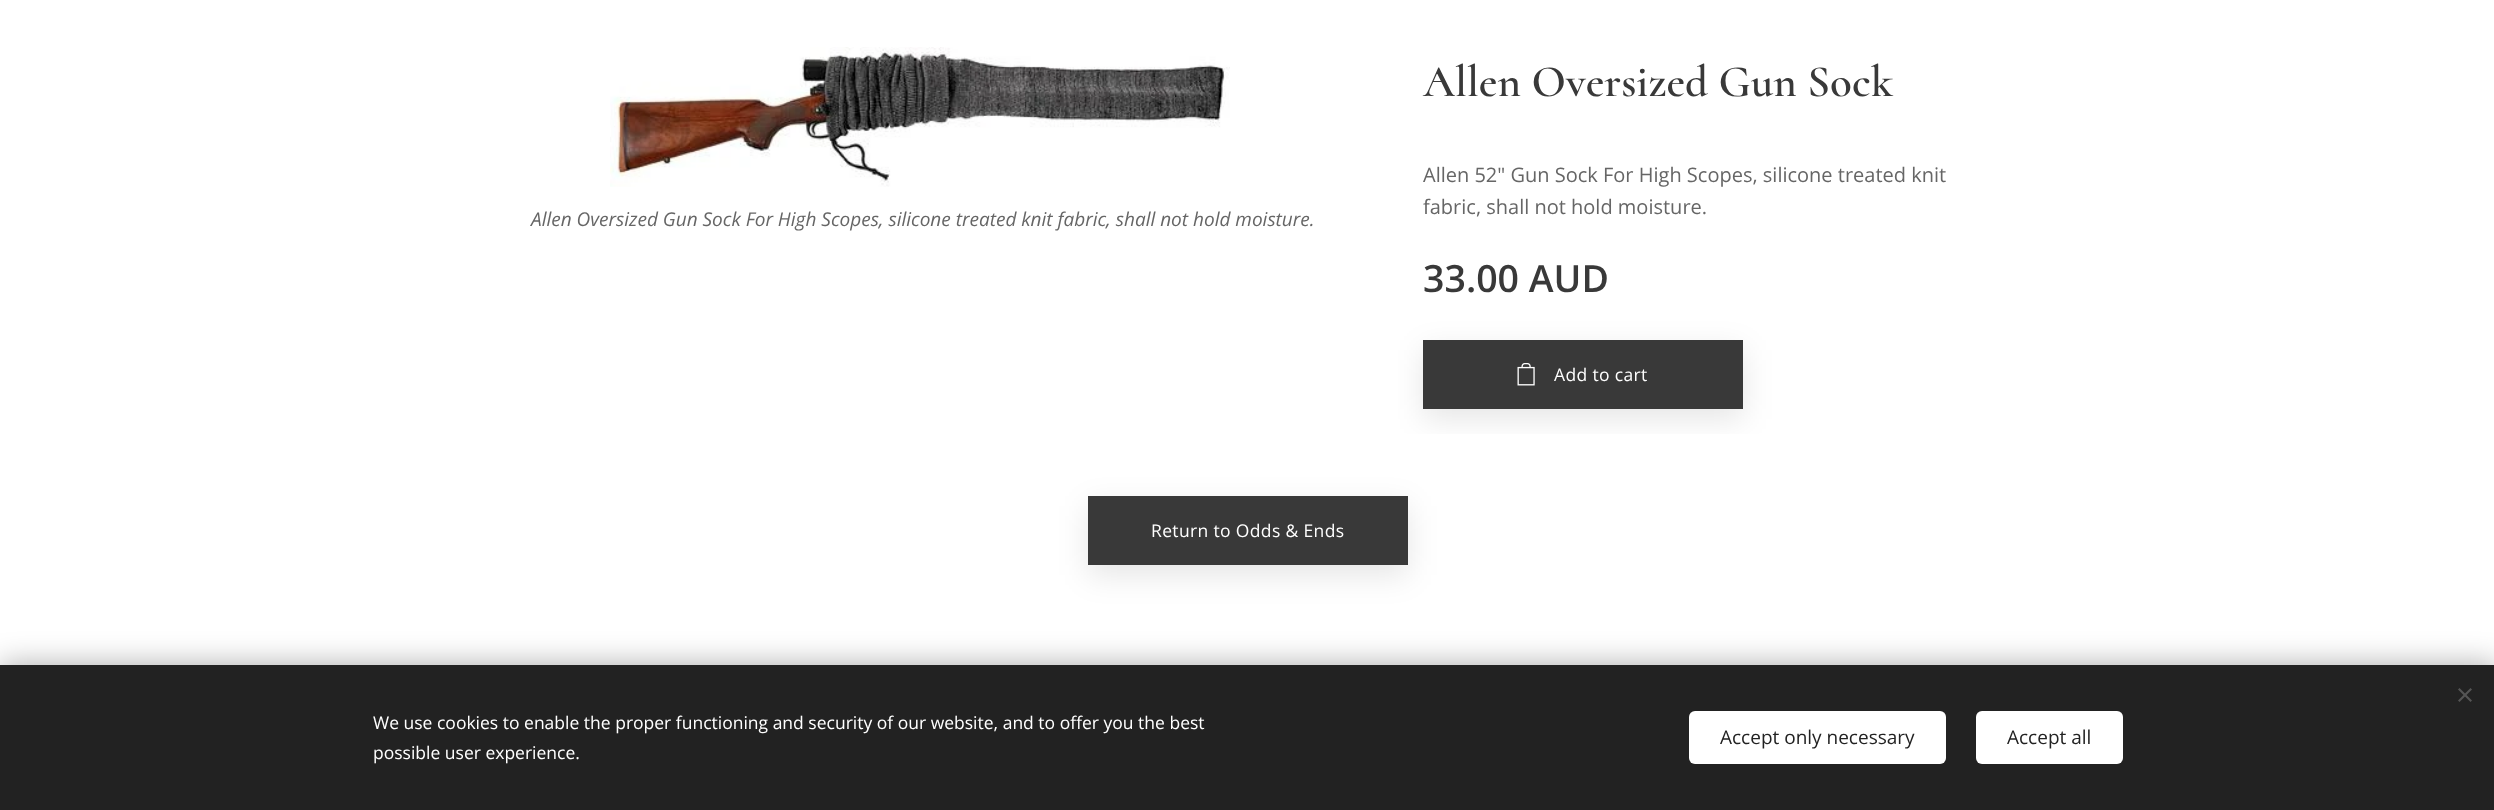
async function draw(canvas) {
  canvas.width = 2494;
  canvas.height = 810;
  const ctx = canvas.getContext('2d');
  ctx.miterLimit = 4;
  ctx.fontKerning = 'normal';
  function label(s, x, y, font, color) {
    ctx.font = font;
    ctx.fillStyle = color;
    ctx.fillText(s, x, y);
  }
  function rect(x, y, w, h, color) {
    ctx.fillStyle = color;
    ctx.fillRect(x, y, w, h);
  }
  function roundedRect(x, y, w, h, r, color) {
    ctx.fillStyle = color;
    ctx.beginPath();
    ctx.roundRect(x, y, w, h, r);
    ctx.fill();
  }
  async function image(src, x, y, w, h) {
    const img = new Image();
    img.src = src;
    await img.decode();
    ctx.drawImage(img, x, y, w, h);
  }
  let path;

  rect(0, 0, 2494, 810, '#fff');
  label('Allen Oversized Gun Sock', 1423, 96, '600 45px Cormorant', '#393939');
  await image('assets/img1.png', 610, 47, 620, 140);
  label('Allen Oversized Gun Sock For High Scopes, silicone treated knit fabric, shall not hold moisture.', 531, 226, 'italic 19px Open Sans', '#666');
  label('Allen 52" Gun Sock For High Scopes, silicone treated knit', 1423, 182, '20px Open Sans', '#666');
  label('fabric, shall not hold moisture.', 1423, 214, '20px Open Sans', '#666');
  label('33.00 AUD', 1423, 292, '600 37.5px Open Sans', '#393939');
  ctx.save();
  ctx.beginPath();
  ctx.rect(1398, 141, 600, 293);
  ctx.clip();
  ctx.fillStyle = '#0000001a';
  ctx.filter = 'blur(15.5px)';
  ctx.beginPath();
  ctx.rect(1423, 350, 320, 69);
  ctx.fill();
  ctx.filter = 'none';
  ctx.restore();
  rect(1423, 340, 320, 69, '#393939');
  await image('assets/img2.png', 1517, 363, 18, 23);
  ctx.letterSpacing = '0.35px';
  label('Add to cart', 1554, 381, '17.5px Open Sans', '#fff');
  ctx.fillStyle = '#0000001a';
  ctx.filter = 'blur(15.5px)';
  ctx.beginPath();
  ctx.rect(1088, 506, 320, 69);
  ctx.fill();
  ctx.filter = 'none';
  rect(1088, 496, 320, 69, '#393939');
  label('Return to Odds & Ends', 1151, 537, '17.5px Open Sans', '#fff');
  ctx.fillStyle = '#00000054';
  ctx.filter = 'blur(15.5px)';
  ctx.beginPath();
  ctx.rect(0, 665, 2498, 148);
  ctx.fill();
  ctx.filter = 'none';
  rect(0, 665, 2494, 145, '#222');
  ctx.fillStyle = '#555';
  path = new Path2D('M2458 700.5L2470.5 688L2472 689.5L2459.5 702Z');
  ctx.fill(path);
  path = new Path2D('M2459.5 688L2472 700.5L2470.5 702L2458 689.5Z');
  ctx.fill(path);
  ctx.letterSpacing = '0px';
  label('We use cookies to enable the proper functioning and security of our website, and to offer you the best', 373, 729, '17.5px Open Sans', '#fff');
  label('possible user experience.', 373, 759, '17.5px Open Sans', '#fff');
  roundedRect(1689, 711, 257, 53, 6, '#fff');
  label('Accept only necessary', 1720, 744, '19px Open Sans', '#222');
  roundedRect(1976, 711, 147, 53, 6, '#fff');
  label('Accept all', 2007, 744, '19px Open Sans', '#222');
}

draw(document.querySelector('canvas'));
